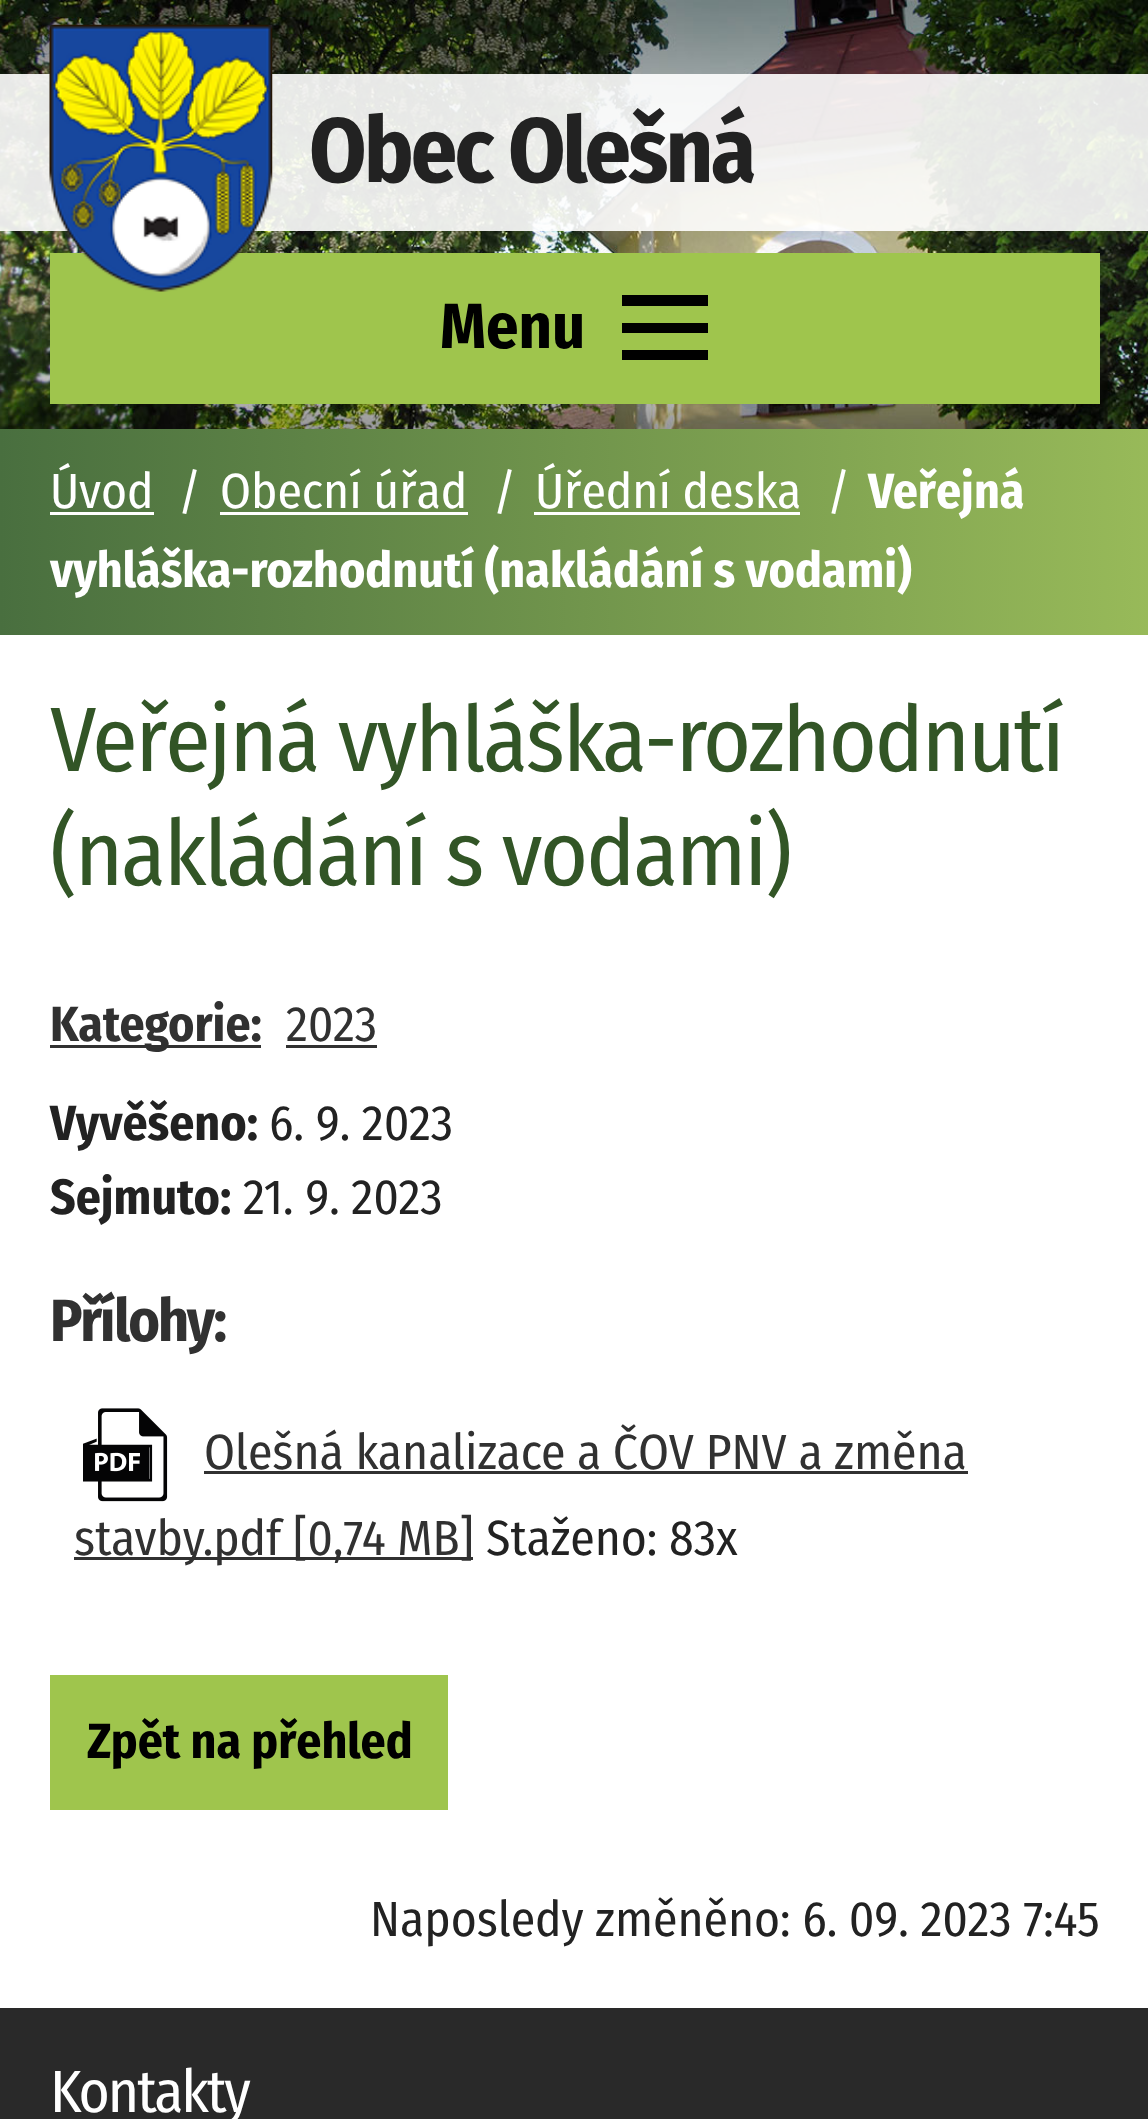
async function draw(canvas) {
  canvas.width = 1148;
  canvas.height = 2119;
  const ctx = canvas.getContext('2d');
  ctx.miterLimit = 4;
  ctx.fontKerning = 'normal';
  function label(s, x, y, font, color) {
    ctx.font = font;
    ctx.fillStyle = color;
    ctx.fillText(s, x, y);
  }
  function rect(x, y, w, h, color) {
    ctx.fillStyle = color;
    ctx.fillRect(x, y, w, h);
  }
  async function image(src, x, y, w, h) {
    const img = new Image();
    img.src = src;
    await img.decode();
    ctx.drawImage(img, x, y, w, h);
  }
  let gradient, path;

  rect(0, 0, 1148, 2119, '#fff');
  await image('assets/img1.png', 0, 0, 1148, 429);
  rect(0, 74, 1148, 157, '#ffffffe6');
  rect(50, 253, 1050, 151, '#9fc54d');
  await image('assets/img2.png', 49, 24, 224, 268);
  ctx.letterSpacing = '-2.75px';
  label('Obec Olešná', 309, 182, 'bold 91.5px Fira Sans Condensed', '#222');
  ctx.letterSpacing = '0px';
  label('Menu', 440, 348, 'bold 64px Fira Sans Condensed', '#000');
  path = new Path2D('M622 360V350H708V360ZM622 295H708V306H622ZM622 333V323H708V333Z');
  ctx.fill(path);
  gradient = ctx.createLinearGradient(0, 532, 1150, 532);
  gradient.addColorStop(0, '#496f3f');
  gradient.addColorStop(1, '#98ba59');
  ctx.fillStyle = gradient;
  ctx.fillRect(0, 429, 1148, 206);
  label('Úvod', 50, 508, '49.5px Fira Sans Condensed', '#fff');
  rect(50, 512, 104, 3, '#fff');
  label('/', 178, 509, '49.5px Fira Sans Condensed', '#fff');
  label('Obecní úřad', 220, 508, '49.5px Fira Sans Condensed', '#fff');
  rect(220, 512, 248, 3, '#fff');
  label('/', 493, 509, '49.5px Fira Sans Condensed', '#fff');
  label('Úřední deska', 535, 508, '49.5px Fira Sans Condensed', '#fff');
  rect(534, 512, 266, 3, '#fff');
  label('/', 827, 509, '49.5px Fira Sans Condensed', '#fff');
  label('Veřejná', 868, 508, 'bold 49.5px Fira Sans Condensed', '#fff');
  label('vyhláška-rozhodnutí (nakládání s vodami)', 50, 587, 'bold 49.5px Fira Sans Condensed', '#fff');
  ctx.letterSpacing = '-2.05px';
  label('Veřejná vyhláška-rozhodnutí', 50, 771, '91.5px Fira Sans Condensed', '#325526');
  label('(nakládání s vodami)', 50, 885, '91.5px Fira Sans Condensed', '#325526');
  rect(50, 1045, 211, 3, '#313131');
  ctx.letterSpacing = '0px';
  label('Kategorie:', 50, 1041, 'bold 49.5px Fira Sans Condensed', '#313131');
  label('2023', 286, 1041, '49.5px Fira Sans Condensed', '#313131');
  rect(286, 1045, 91, 3, '#313131');
  label('Vyvěšeno:', 50, 1140, 'bold 49.5px Fira Sans Condensed', '#222');
  label('6. 9. 2023', 269, 1140, '49.5px Fira Sans Condensed', '#222');
  label('Sejmuto:', 50, 1214, 'bold 49.5px Fira Sans Condensed', '#222');
  label('21. 9. 2023', 243, 1214, '49.5px Fira Sans Condensed', '#222');
  ctx.letterSpacing = '-2.05px';
  label('Přílohy:', 50, 1341, 'bold 59.5px Fira Sans Condensed', '#313131');
  await image('assets/img3.png', 83, 1408, 85, 94);
  ctx.letterSpacing = '0px';
  label('Olešná kanalizace a ČOV PNV a změna', 204, 1469, '49.5px Fira Sans Condensed', '#313131');
  rect(204, 1471, 764, 3, '#313131');
  rect(74, 1557, 399, 3, '#313131');
  label('stavby.pdf [0,74 MB]', 74, 1555, '49.5px Fira Sans Condensed', '#313131');
  label('Staženo: 83x', 486, 1555, '49.5px Fira Sans Condensed', '#222');
  rect(50, 1675, 398, 135, '#9fc54d');
  label('Zpět na přehled', 87, 1758, 'bold 49.5px Fira Sans Condensed', '#000');
  label('Naposledy změněno: 6. 09. 2023 7:45', 370, 1936, '49.5px Fira Sans Condensed', '#222');
  rect(0, 2008, 1148, 111, '#292929');
  ctx.letterSpacing = '-2.05px';
  label('Kontakty', 50, 2112, '59.5px Fira Sans Condensed', '#fff');
}

draw(document.querySelector('canvas'));
